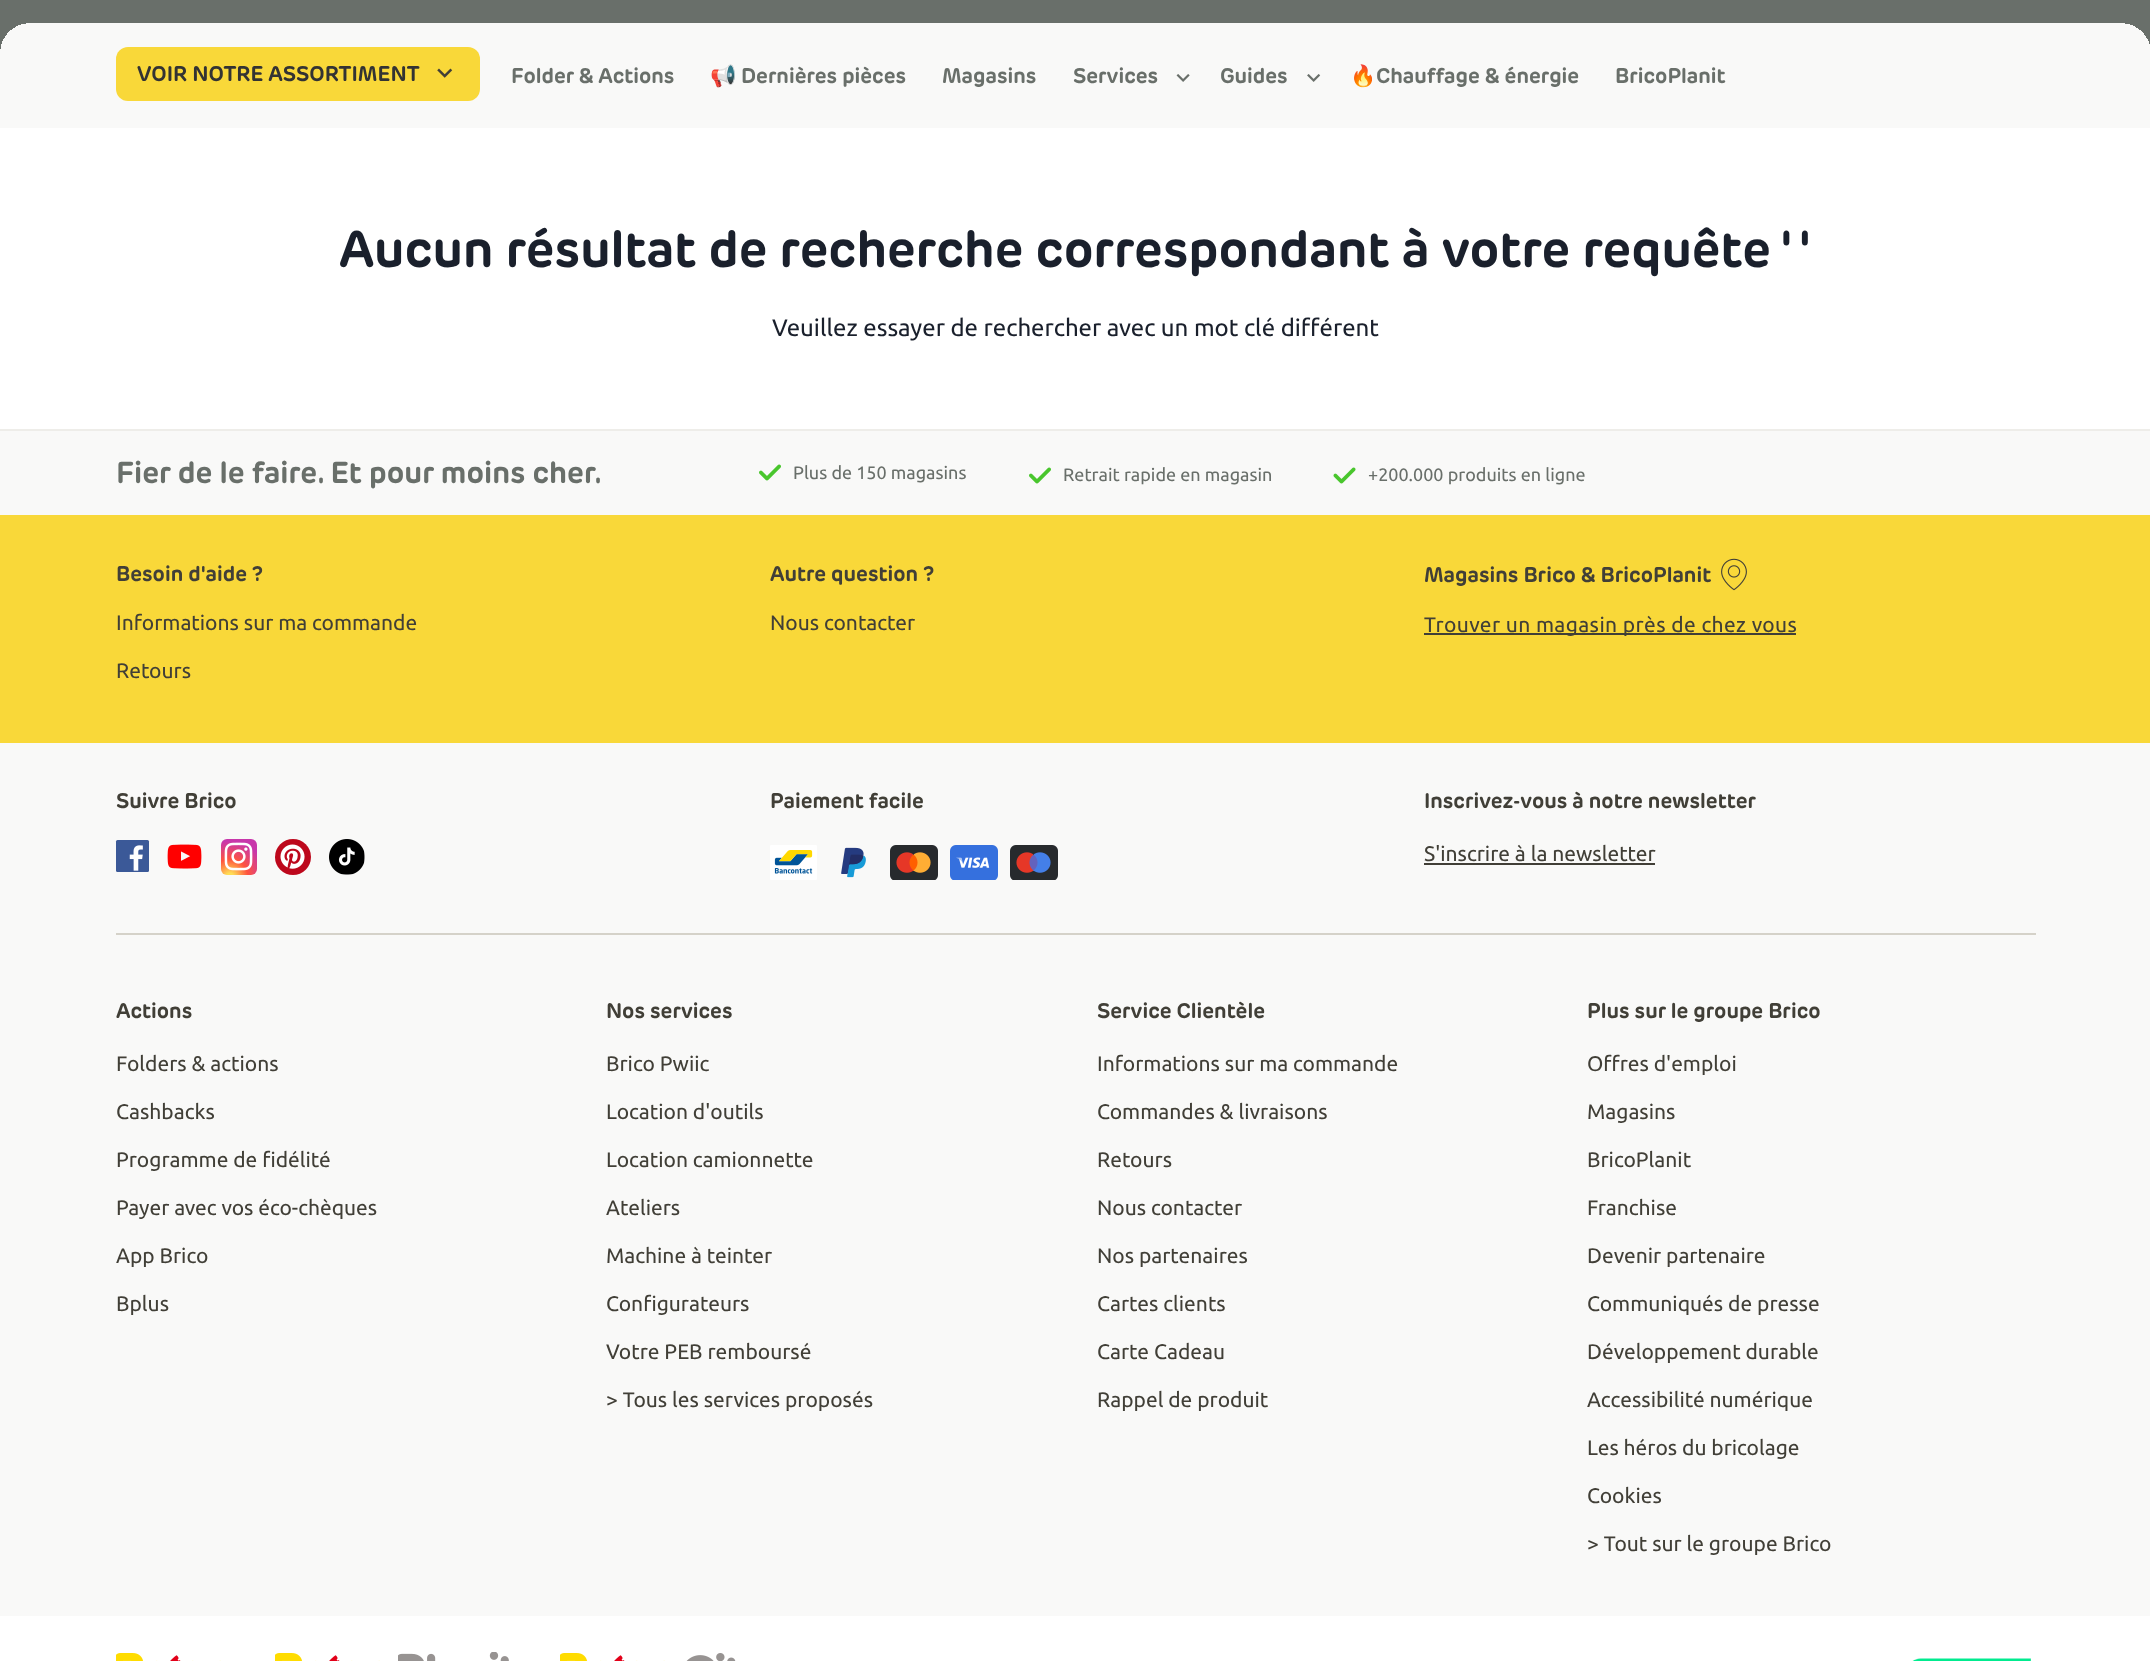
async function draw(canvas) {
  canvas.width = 2150;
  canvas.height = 1661;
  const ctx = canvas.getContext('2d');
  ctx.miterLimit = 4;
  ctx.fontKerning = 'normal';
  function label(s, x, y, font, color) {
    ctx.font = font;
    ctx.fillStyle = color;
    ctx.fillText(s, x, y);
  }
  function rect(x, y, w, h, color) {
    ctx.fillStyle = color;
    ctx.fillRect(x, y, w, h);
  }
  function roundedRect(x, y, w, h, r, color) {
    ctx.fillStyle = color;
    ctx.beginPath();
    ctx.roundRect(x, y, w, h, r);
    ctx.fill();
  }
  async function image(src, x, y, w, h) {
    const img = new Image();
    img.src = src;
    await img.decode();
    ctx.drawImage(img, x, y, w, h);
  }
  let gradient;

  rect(0, 0, 2150, 1661, '#fff');
  rect(0, 0, 2150, 23, '#696f6a');
  rect(0, 23, 2150, 105, '#f9f9f8');
  gradient = ctx.createRadialGradient(30, 53, 0, 30, 53, 42);
  gradient.addColorStop(0.71, '#f9f9f8');
  gradient.addColorStop(0.71, '#696f6a');
  ctx.fillStyle = gradient;
  ctx.fillRect(0, 23, 26, 26);
  gradient = ctx.createRadialGradient(2121, 53, 0, 2121, 53, 42);
  gradient.addColorStop(0.71, '#f9f9f8');
  gradient.addColorStop(0.71, '#696f6a');
  ctx.fillStyle = gradient;
  ctx.fillRect(2125, 23, 25, 21);
  roundedRect(116, 47, 364, 54, 12, '#f9d839');
  label('VOIR NOTRE ASSORTIMENT', 137, 81, 'bold 21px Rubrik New', '#333');
  await image('assets/img1.png', 437, 68, 16, 10);
  label('Folder & Actions', 511, 83, 'bold 21px Rubrik New', '#696f6a');
  label('📢', 710, 83, '21px Noto Color Emoji', '#696f6a');
  label('Dernières pièces', 741, 83, 'bold 21px Rubrik New', '#696f6a');
  label('Magasins', 942, 83, 'bold 21px Rubrik New', '#696f6a');
  label('Services', 1073, 83, 'bold 21px Rubrik New', '#696f6a');
  await image('assets/img2.png', 1176, 74, 14, 8);
  label('Guides', 1220, 83, 'bold 21px Rubrik New', '#696f6a');
  await image('assets/img3.png', 1307, 74, 14, 8);
  label('🔥', 1350, 83, '21px Noto Color Emoji', '#696f6a');
  label('Chauffage & énergie', 1376, 83, 'bold 21px Rubrik New', '#696f6a');
  label('BricoPlanit', 1615, 83, 'bold 21px Rubrik New', '#696f6a');
  label('Aucun résultat de recherche correspondant à votre requête \' \'', 339, 267, 'bold 51px Rubrik New', '#1a202c');
  label('Veuillez essayer de rechercher avec un mot clé différent', 772, 336, '24px Ubuntu', '#1a202c');
  rect(0, 429, 2150, 2, '#eeede9');
  rect(0, 431, 2150, 84, '#f9f9f8');
  label('Fier de le faire. Et pour moins cher.', 116, 483, 'bold 30px Rubrik New', '#696f6a');
  await image('assets/img4.png', 759, 464, 22, 17);
  label('Plus de 150 magasins', 793, 479, '18px Ubuntu', '#696f6a');
  await image('assets/img4.png', 1029, 467, 22, 17);
  label('Retrait rapide en magasin', 1063, 481, '18px Ubuntu', '#696f6a');
  await image('assets/img5.png', 1333, 467, 23, 17);
  label('+200.000 produits en ligne', 1368, 481, '18px Ubuntu', '#696f6a');
  rect(0, 515, 2150, 228, '#f9d839');
  label('Besoin d\'aide ?', 116, 581, 'bold 21px Rubrik New', '#413f37');
  label('Informations sur ma commande', 116, 630, '21px Ubuntu', '#413f37');
  label('Retours', 116, 678, '21px Ubuntu', '#413f37');
  label('Autre question ?', 770, 581, 'bold 21px Rubrik New', '#413f37');
  label('Nous contacter', 770, 630, '21px Ubuntu', '#413f37');
  label('Magasins Brico & BricoPlanit', 1424, 582, 'bold 21px Rubrik New', '#413f37');
  await image('assets/img6.png', 1721, 558, 26, 33);
  rect(1424, 633, 372, 2, '#413f37');
  ctx.letterSpacing = '0.4px';
  label('Trouver un magasin près de chez vous', 1424, 632, '21px Ubuntu', '#413f37');
  rect(0, 743, 2150, 873, '#f9f9f8');
  ctx.letterSpacing = '0px';
  label('Suivre Brico', 116, 808, 'bold 21px Rubrik New', '#413f37');
  roundedRect(116, 840, 33, 32, 1.5, '#3b5998');
  await image('assets/img7.png', 129, 845, 14, 26);
  await image('assets/img8.png', 167, 844, 35, 25);
  gradient = ctx.createRadialGradient(230, 877, 0, 230, 877, 47);
  gradient.addColorStop(0, '#fd5');
  gradient.addColorStop(0.08, '#fd5');
  gradient.addColorStop(0.38, '#ff543e');
  gradient.addColorStop(0.76, '#c837ab');
  ctx.fillStyle = gradient;
  ctx.beginPath();
  ctx.roundRect(221, 839, 36, 36, 6);
  ctx.fill();
  await image('assets/img9.png', 224, 842, 29, 29);
  ctx.fillStyle = '#bd081c';
  ctx.beginPath();
  ctx.arc(293, 857, 18, 0, 2 * Math.PI);
  ctx.fill();
  await image('assets/img10.png', 280, 844, 25, 25);
  await image('assets/img11.png', 329, 839, 36, 36);
  label('Paiement facile', 770, 808, 'bold 21px Rubrik New', '#413f37');
  await image('assets/img12.png', 770, 845, 47, 35);
  await image('assets/img13.png', 841, 847, 25, 31);
  await image('assets/img14.png', 890, 845, 48, 35);
  await image('assets/img15.png', 950, 845, 48, 35);
  await image('assets/img16.png', 1010, 845, 48, 35);
  label('Inscrivez-vous à notre newsletter', 1424, 808, 'bold 21px Rubrik New', '#413f37');
  label('S\'inscrire à la newsletter', 1424, 861, '21px Ubuntu', '#413f37');
  rect(1424, 863, 231, 2, '#413f37');
  rect(116, 933, 1920, 2, '#d5d2c9');
  label('Actions', 116, 1018, 'bold 21px Rubrik New', '#413f37');
  label('Folders & actions', 116, 1071, '21px Ubuntu', '#413f37');
  label('Cashbacks', 116, 1119, '21px Ubuntu', '#413f37');
  label('Programme de fidélité', 116, 1167, '21px Ubuntu', '#413f37');
  label('Payer avec vos éco-chèques', 116, 1215, '21px Ubuntu', '#413f37');
  label('App Brico', 116, 1263, '21px Ubuntu', '#413f37');
  label('Bplus', 116, 1311, '21px Ubuntu', '#413f37');
  label('Nos services', 606, 1018, 'bold 21px Rubrik New', '#413f37');
  label('Brico Pwiic', 606, 1071, '21px Ubuntu', '#413f37');
  label('Location d\'outils', 606, 1119, '21px Ubuntu', '#413f37');
  label('Location camionnette', 606, 1167, '21px Ubuntu', '#413f37');
  label('Ateliers', 606, 1215, '21px Ubuntu', '#413f37');
  label('Machine à teinter', 606, 1263, '21px Ubuntu', '#413f37');
  label('Configurateurs', 606, 1311, '21px Ubuntu', '#413f37');
  label('Votre PEB remboursé', 606, 1359, '21px Ubuntu', '#413f37');
  label('> Tous les services proposés', 606, 1407, '21px Ubuntu', '#413f37');
  label('Service Clientèle', 1097, 1018, 'bold 21px Rubrik New', '#413f37');
  label('Informations sur ma commande', 1097, 1071, '21px Ubuntu', '#413f37');
  label('Commandes & livraisons', 1097, 1119, '21px Ubuntu', '#413f37');
  label('Retours', 1097, 1167, '21px Ubuntu', '#413f37');
  label('Nous contacter', 1097, 1215, '21px Ubuntu', '#413f37');
  label('Nos partenaires', 1097, 1263, '21px Ubuntu', '#413f37');
  label('Cartes clients', 1097, 1311, '21px Ubuntu', '#413f37');
  label('Carte Cadeau', 1097, 1359, '21px Ubuntu', '#413f37');
  label('Rappel de produit', 1097, 1407, '21px Ubuntu', '#413f37');
  label('Plus sur le groupe Brico', 1587, 1018, 'bold 21px Rubrik New', '#413f37');
  label('Offres d\'emploi', 1587, 1071, '21px Ubuntu', '#413f37');
  label('Magasins', 1587, 1119, '21px Ubuntu', '#413f37');
  label('BricoPlanit', 1587, 1167, '21px Ubuntu', '#413f37');
  label('Franchise', 1587, 1215, '21px Ubuntu', '#413f37');
  label('Devenir partenaire', 1587, 1263, '21px Ubuntu', '#413f37');
  label('Communiqués de presse', 1587, 1311, '21px Ubuntu', '#413f37');
  label('Développement durable', 1587, 1359, '21px Ubuntu', '#413f37');
  label('Accessibilité numérique', 1587, 1407, '21px Ubuntu', '#413f37');
  label('Les héros du bricolage', 1587, 1455, '21px Ubuntu', '#413f37');
  label('Cookies', 1587, 1503, '21px Ubuntu', '#413f37');
  label('> Tout sur le groupe Brico', 1587, 1551, '21px Ubuntu', '#413f37');
  await image('assets/img17.png', 116, 1653, 105, 8);
  await image('assets/img17.png', 275, 1653, 105, 8);
  await image('assets/img18.png', 398, 1652, 111, 9);
  await image('assets/img17.png', 560, 1653, 105, 8);
  await image('assets/img19.png', 686, 1653, 50, 8);
  await image('assets/img20.png', 1912, 1658, 119, 3);
}

draw(document.querySelector('canvas'));
